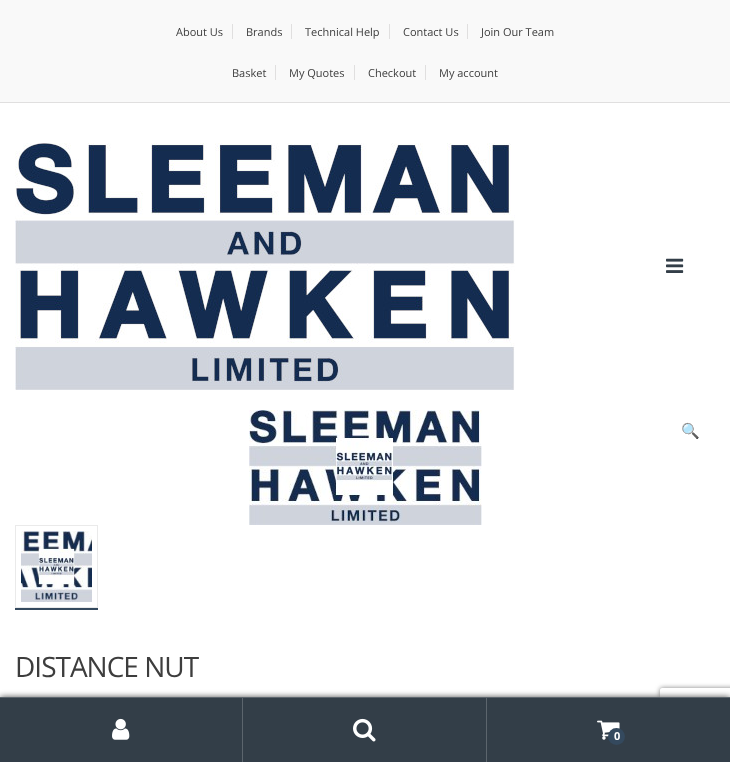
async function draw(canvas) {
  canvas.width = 730;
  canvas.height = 762;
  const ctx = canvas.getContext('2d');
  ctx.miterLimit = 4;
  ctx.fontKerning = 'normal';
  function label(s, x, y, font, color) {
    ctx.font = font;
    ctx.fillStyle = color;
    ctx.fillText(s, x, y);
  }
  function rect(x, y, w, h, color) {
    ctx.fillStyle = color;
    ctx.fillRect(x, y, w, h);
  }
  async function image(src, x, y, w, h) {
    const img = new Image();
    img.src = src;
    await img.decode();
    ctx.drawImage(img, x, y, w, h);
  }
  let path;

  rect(0, 0, 730, 762, '#fff');
  rect(0, 0, 730, 102, '#f9f9f9');
  rect(0, 102, 730, 1, '#e0dfdf');
  rect(232, 24, 1, 15, '#e0dfdf');
  label('About Us', 176, 36, '11px Open Sans', '#3d3d3d');
  rect(291, 24, 1, 15, '#e0dfdf');
  label('Brands', 246, 36, '11px Open Sans', '#3d3d3d');
  rect(389, 24, 1, 15, '#e0dfdf');
  label('Technical Help', 305, 36, '11px Open Sans', '#3d3d3d');
  rect(467, 24, 1, 15, '#e0dfdf');
  label('Contact Us', 403, 36, '11px Open Sans', '#3d3d3d');
  label('Join Our Team', 481, 36, '11px Open Sans', '#3d3d3d');
  rect(275, 65, 1, 15, '#e0dfdf');
  label('Basket', 232, 77, '11px Open Sans', '#3d3d3d');
  rect(354, 65, 1, 15, '#e0dfdf');
  label('My Quotes', 289, 77, '11px Open Sans', '#3d3d3d');
  rect(425, 65, 1, 15, '#e0dfdf');
  label('Checkout', 368, 77, '11px Open Sans', '#3d3d3d');
  label('My account', 439, 77, '11px Open Sans', '#3d3d3d');
  await image('assets/img1.png', 15, 143, 500, 247);
  await image('assets/img2.png', 666, 258, 18, 15);
  await image('assets/img3.png', 249, 410, 233, 115);
  label('🔍', 681, 436, '15px Noto Color Emoji', '#34495e');
  rect(15, 608, 83, 2, '#34495e');
  ctx.strokeStyle = '#eaeaea';
  ctx.strokeRect(15.5, 525.5, 82, 82);
  await image('assets/img4.png', 21, 531, 71, 71);
  ctx.letterSpacing = '-1px';
  label('DISTANCE NUT', 15, 677, '28px Open Sans', '#3d3d3d');
  ctx.fillStyle = '#000000b3';
  ctx.filter = 'blur(3px)';
  ctx.beginPath();
  ctx.rect(0, 697, 730, 65);
  ctx.fill();
  ctx.filter = 'none';
  ctx.save();
  path = new Path2D('M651 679H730V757H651ZM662 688H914C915 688 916 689 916 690V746C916 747 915 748 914 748H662C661 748 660 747 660 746V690C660 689 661 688 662 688Z');
  ctx.clip(path, 'evenodd');
  ctx.fillStyle = '#808080';
  ctx.filter = 'blur(2.5px)';
  ctx.beginPath();
  ctx.roundRect(660, 688, 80, 60, 2);
  ctx.fill();
  ctx.filter = 'none';
  ctx.restore();
  rect(0, 697, 730, 1, '#5c656d');
  rect(0, 698, 242, 64, '#333e48');
  rect(242, 698, 1, 64, '#5c656d');
  await image('assets/img5.png', 112, 718, 18, 22);
  rect(243, 698, 243, 64, '#333e48');
  rect(486, 698, 1, 64, '#5c656d');
  await image('assets/img6.png', 353, 718, 23, 24);
  rect(487, 698, 243, 64, '#333e48');
  await image('assets/img7.png', 597, 720, 23, 20);
  ctx.fillStyle = '#34495e';
  ctx.beginPath();
  ctx.arc(616.5, 736.5, 8.5, 0, 2 * Math.PI);
  ctx.fill();
  ctx.letterSpacing = '0px';
  label('0', 614, 740, 'bold 11px Open Sans', '#fff');
}

draw(document.querySelector('canvas'));
